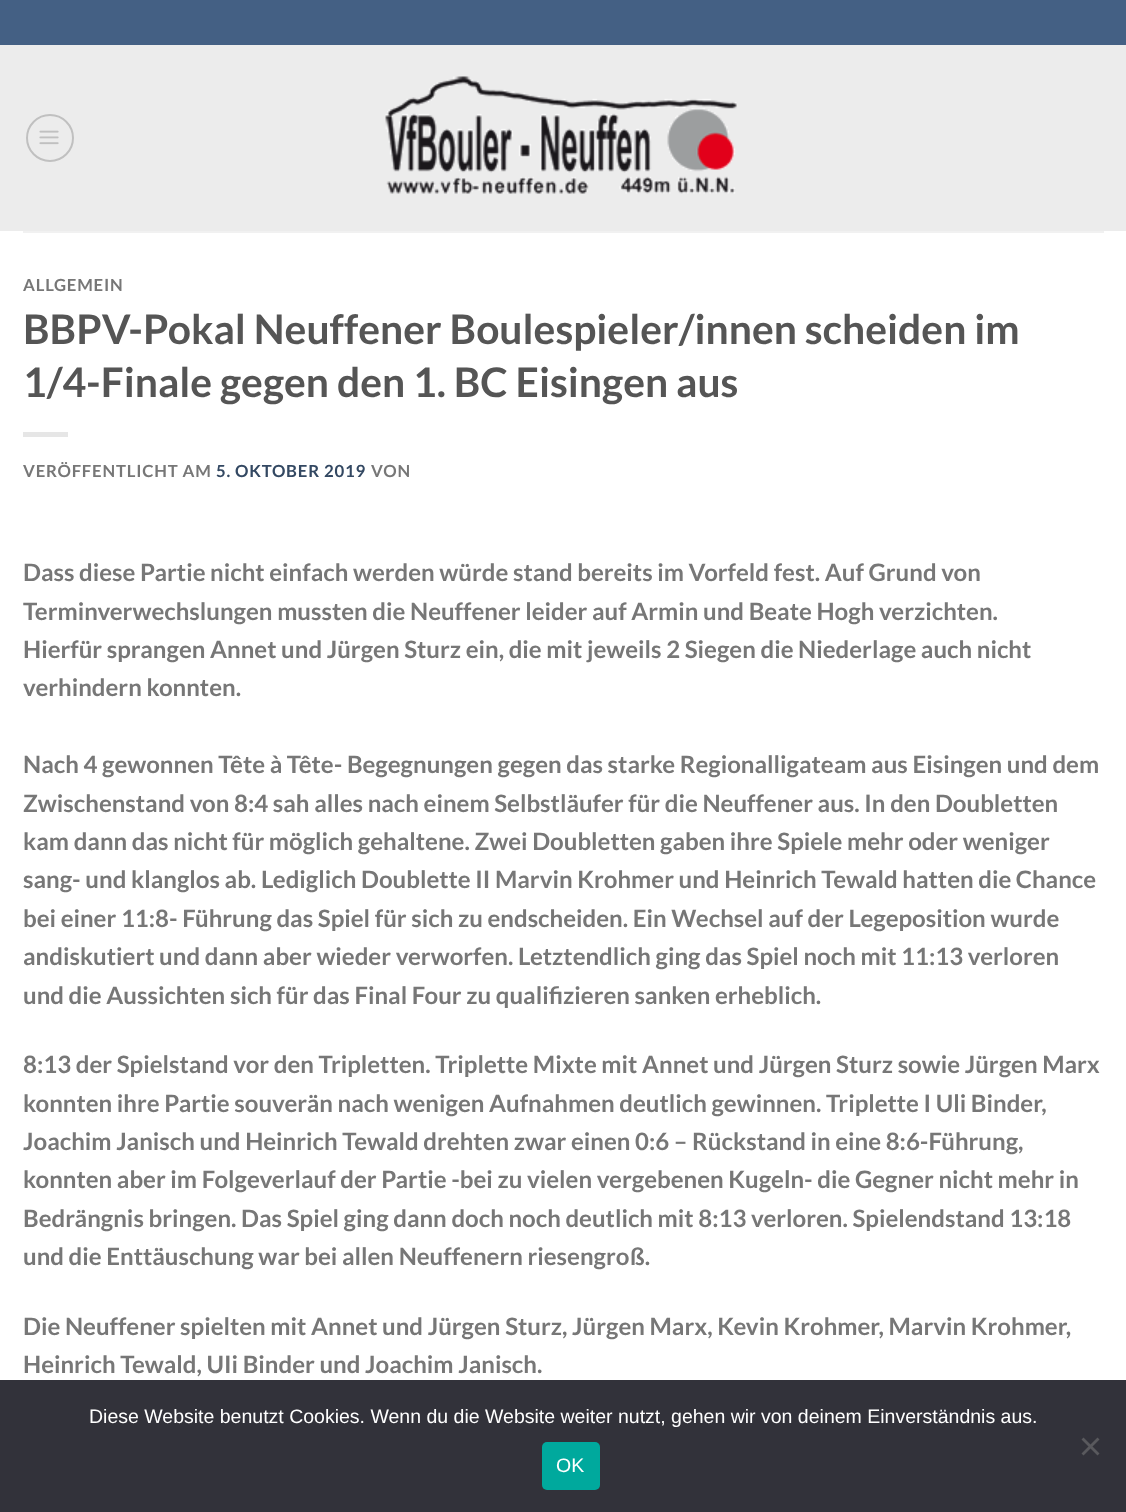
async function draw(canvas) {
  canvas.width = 1126;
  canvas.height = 1512;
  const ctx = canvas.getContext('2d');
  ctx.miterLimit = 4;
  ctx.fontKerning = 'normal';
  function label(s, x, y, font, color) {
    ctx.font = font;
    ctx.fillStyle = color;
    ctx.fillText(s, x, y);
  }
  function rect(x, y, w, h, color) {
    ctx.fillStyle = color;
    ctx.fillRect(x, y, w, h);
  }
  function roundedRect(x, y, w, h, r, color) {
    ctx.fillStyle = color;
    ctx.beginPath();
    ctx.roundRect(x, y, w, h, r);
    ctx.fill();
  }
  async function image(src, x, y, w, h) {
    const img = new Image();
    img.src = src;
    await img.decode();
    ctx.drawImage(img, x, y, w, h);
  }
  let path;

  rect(0, 0, 1126, 1512, '#fff');
  rect(0, 0, 1126, 45, '#446084');
  rect(0, 45, 1126, 186, '#ececec');
  ctx.beginPath();
  ctx.arc(50, 138, 23, 0, 2 * Math.PI);
  ctx.strokeStyle = '#c0c0c0';
  ctx.lineWidth = 2;
  ctx.stroke();
  await image('assets/img1.png', 39, 130, 20, 15);
  await image('assets/img2.png', 385, 76, 352, 118);
  rect(23, 231, 1081, 2, '#f1f1f1');
  ctx.letterSpacing = '0.8px';
  label('ALLGEMEIN', 23, 291, 'bold 16.75px Lato', '#777');
  ctx.letterSpacing = '0px';
  label('BBPV-Pokal Neuffener Boulespieler/innen scheiden im', 23, 344, 'bold 40.8px Lato', '#555');
  label('1/4-Finale gegen den 1. BC Eisingen aus', 23, 397, 'bold 40.8px Lato', '#555');
  rect(23, 432, 45, 5, '#e6e6e6');
  ctx.letterSpacing = '0.8px';
  label('VERÖFFENTLICHT AM', 23, 477, 'bold 16.75px Lato', '#777');
  label('5. OKTOBER 2019', 216, 477, 'bold 16.75px Lato', '#334862');
  label('VON', 371, 477, 'bold 16.75px Lato', '#777');
  ctx.letterSpacing = '0px';
  label('Dass diese Partie nicht einfach werden würde stand bereits im Vorfeld fest. Auf Grund von', 23, 581, 'bold 24px Lato', '#777');
  label('Terminverwechslungen mussten die Neuffener leider auf Armin und Beate Hogh verzichten.', 23, 620, 'bold 24px Lato', '#777');
  label('Hierfür sprangen Annet und Jürgen Sturz ein, die mit jeweils 2 Siegen die Niederlage auch nicht', 23, 658, 'bold 24px Lato', '#777');
  label('verhindern konnten.', 23, 696, 'bold 24px Lato', '#777');
  label('Nach 4 gewonnen Tête à Tête- Begegnungen gegen das starke Regionalligateam aus Eisingen und dem', 23, 773, 'bold 24px Lato', '#777');
  label('Zwischenstand von 8:4 sah alles nach einem Selbstläufer für die Neuffener aus. In den Doubletten', 23, 812, 'bold 24px Lato', '#777');
  label('kam dann das nicht für möglich gehaltene. Zwei Doubletten gaben ihre Spiele mehr oder weniger', 23, 850, 'bold 24px Lato', '#777');
  label('sang- und klanglos ab. Lediglich Doublette II Marvin Krohmer und Heinrich Tewald hatten die Chance', 23, 888, 'bold 24px Lato', '#777');
  label('bei einer 11:8- Führung das Spiel für sich zu endscheiden. Ein Wechsel auf der Legeposition wurde', 23, 927, 'bold 24px Lato', '#777');
  label('andiskutiert und dann aber wieder verworfen. Letztendlich ging das Spiel noch mit 11:13 verloren', 23, 965, 'bold 24px Lato', '#777');
  label('und die Aussichten sich für das Final Four zu qualifizieren sanken erheblich.', 23, 1004, 'bold 24px Lato', '#777');
  label('8:13 der Spielstand vor den Tripletten. Triplette Mixte mit Annet und Jürgen Sturz sowie Jürgen Marx', 23, 1073, 'bold 24px Lato', '#777');
  label('konnten ihre Partie souverän nach wenigen Aufnahmen deutlich gewinnen. Triplette I Uli Binder,', 23, 1112, 'bold 24px Lato', '#777');
  label('Joachim Janisch und Heinrich Tewald drehten zwar einen 0:6 – Rückstand in eine 8:6-Führung,', 23, 1150, 'bold 24px Lato', '#777');
  label('konnten aber im Folgeverlauf der Partie -bei zu vielen vergebenen Kugeln- die Gegner nicht mehr in', 23, 1188, 'bold 24px Lato', '#777');
  label('Bedrängnis bringen. Das Spiel ging dann doch noch deutlich mit 8:13 verloren. Spielendstand 13:18', 23, 1227, 'bold 24px Lato', '#777');
  label('und die Enttäuschung war bei allen Neuffenern riesengroß.', 23, 1265, 'bold 24px Lato', '#777');
  label('Die Neuffener spielten mit Annet und Jürgen Sturz, Jürgen Marx, Kevin Krohmer, Marvin Krohmer,', 23, 1335, 'bold 24px Lato', '#777');
  label('Heinrich Tewald, UIi Binder und Joachim Janisch.', 23, 1373, 'bold 24px Lato', '#777');
  rect(0, 1380, 1126, 132, '#32323a');
  label('Diese Website benutzt Cookies. Wenn du die Website weiter nutzt, gehen wir von deinem Einverständnis aus.', 89, 1423, '19.5px Liberation Sans', '#fff');
  ctx.fillStyle = '#59595d';
  path = new Path2D('M1097.5 1437.5L1099.5 1439.5L1083.5 1455.5L1081.5 1453.5Z');
  ctx.fill(path);
  path = new Path2D('M1081.5 1439.5L1083.5 1437.5L1099.5 1453.5L1097.5 1455.5Z');
  ctx.fill(path);
  roundedRect(542, 1442, 58, 48, 5, '#00a99d');
  label('OK', 556, 1472, '19.5px Liberation Sans', '#fff');
}

draw(document.querySelector('canvas'));
